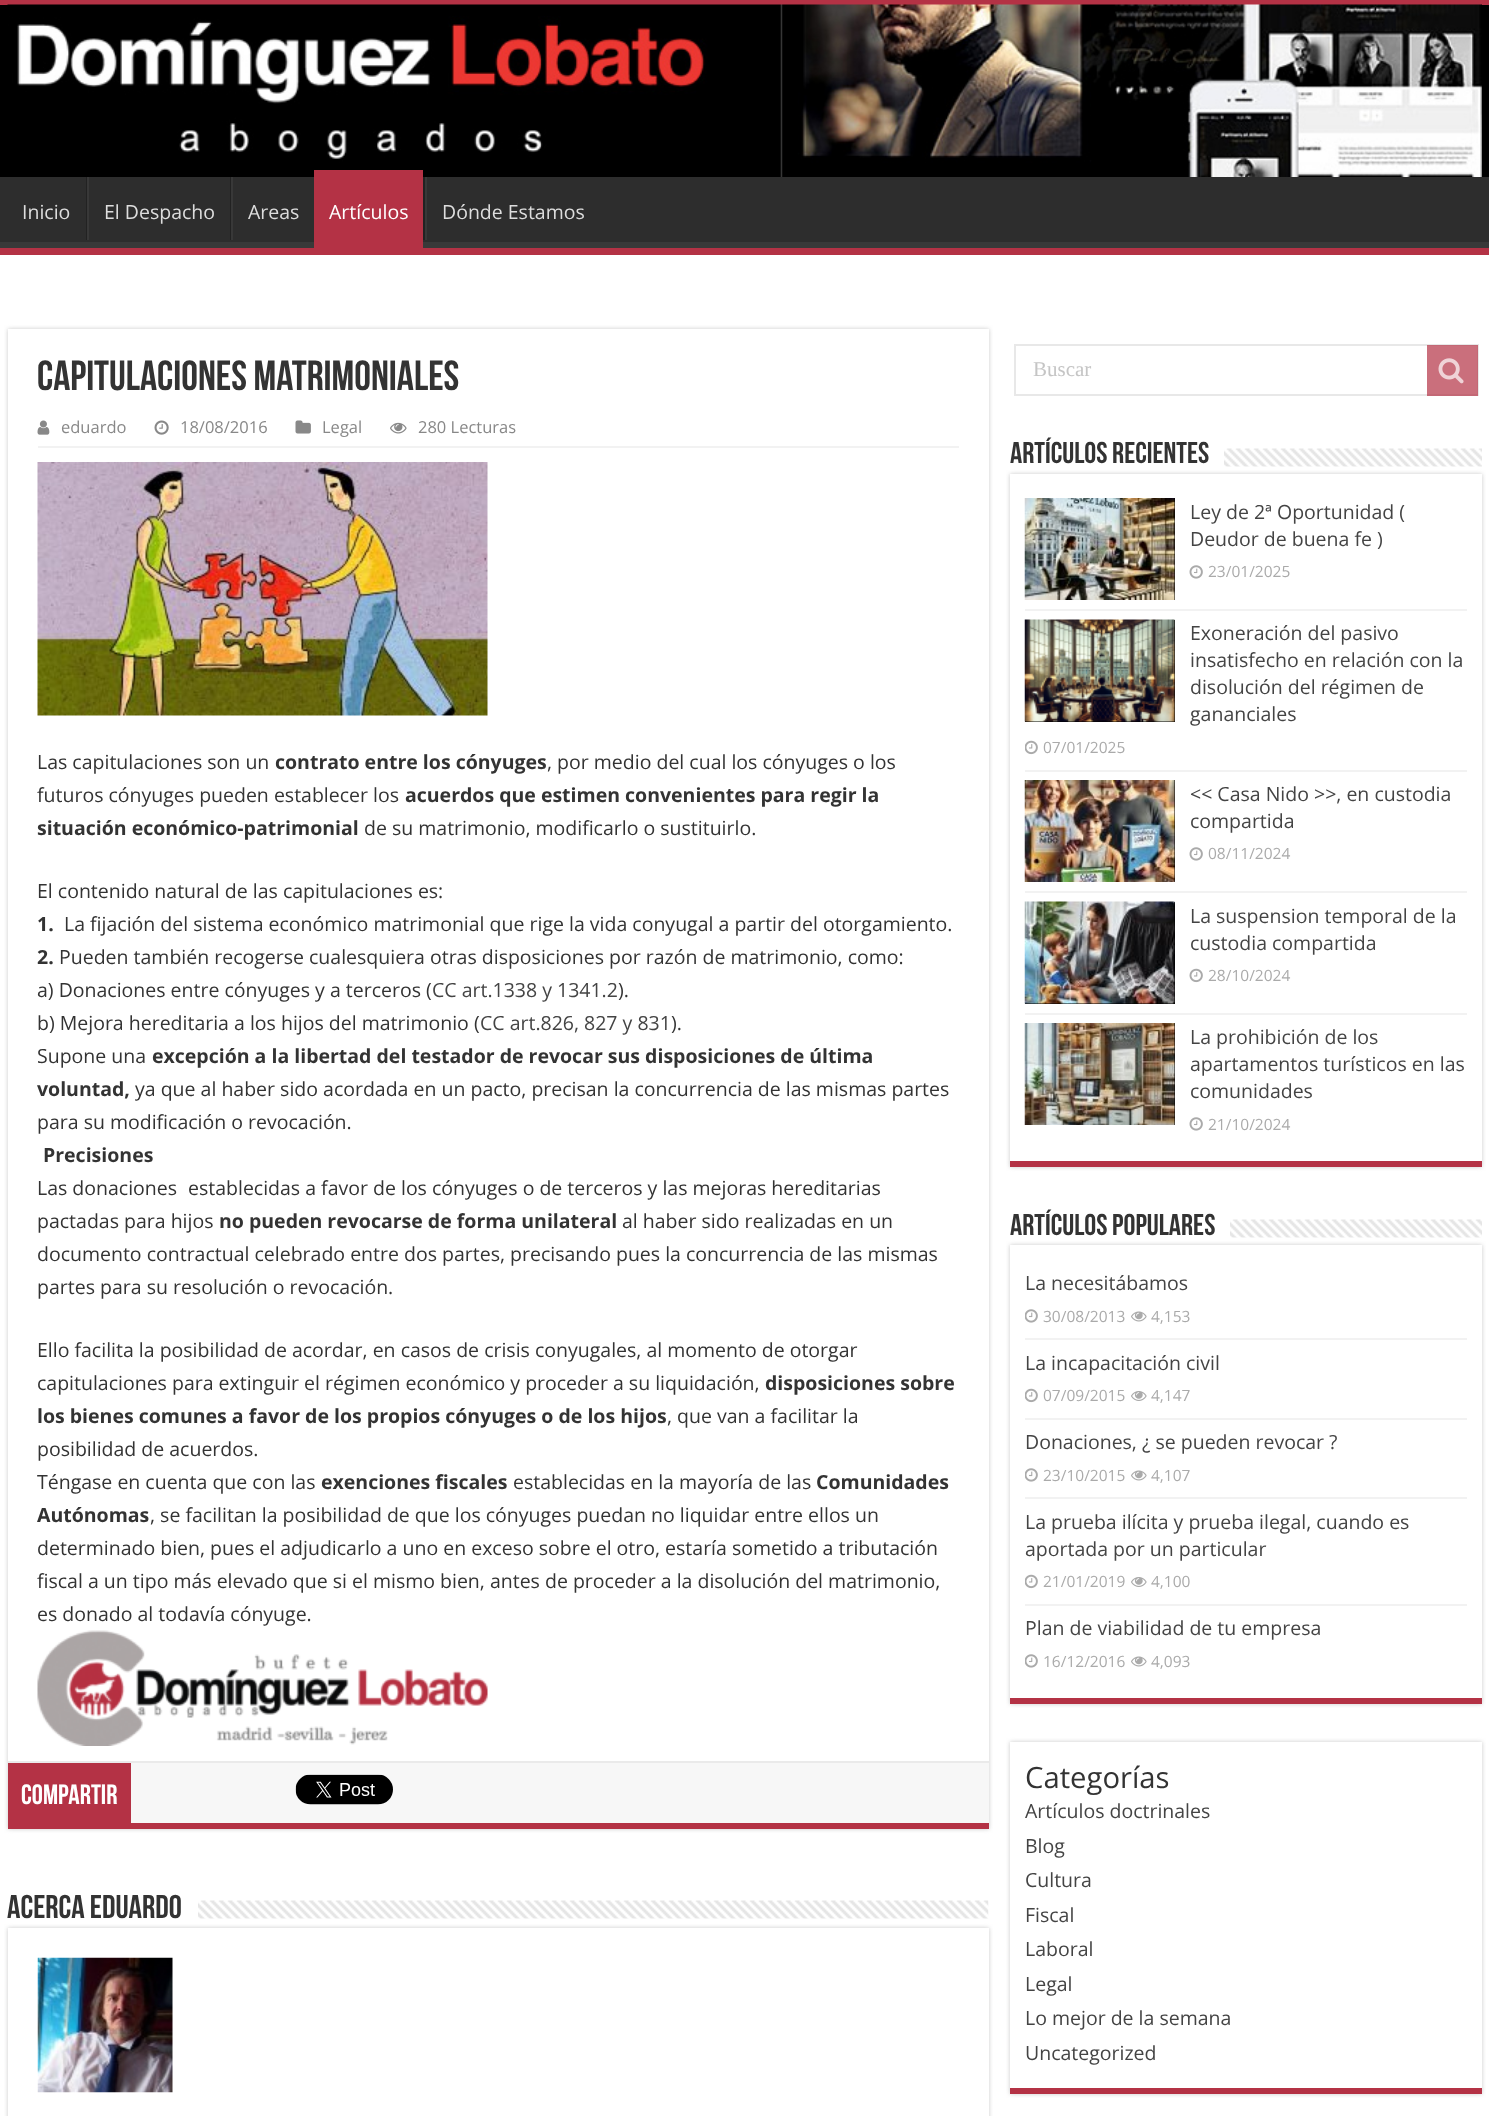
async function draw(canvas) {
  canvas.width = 1489;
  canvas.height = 2116;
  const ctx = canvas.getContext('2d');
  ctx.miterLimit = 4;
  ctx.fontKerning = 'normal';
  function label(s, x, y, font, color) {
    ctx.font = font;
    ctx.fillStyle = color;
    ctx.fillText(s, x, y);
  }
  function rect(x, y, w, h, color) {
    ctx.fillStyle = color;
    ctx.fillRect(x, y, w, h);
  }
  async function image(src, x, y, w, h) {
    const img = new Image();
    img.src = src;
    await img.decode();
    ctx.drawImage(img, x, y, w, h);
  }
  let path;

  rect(0, 0, 1489, 2116, '#fff');
  rect(0, 5, 1489, 172, '#000');
  rect(0, 0, 1489, 5, '#b43245');
  await image('assets/img1.png', 7, 4, 1475, 173);
  rect(0, 177, 1489, 65, '#2d2d2d');
  ctx.save();
  ctx.beginPath();
  ctx.rect(0, 177, 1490, 71);
  ctx.clip();
  ctx.fillStyle = '#393939';
  path = new Path2D('M-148 28H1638V396H-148ZM-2 168H1488C1489 168 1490 169 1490 170V240C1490 241 1489 242 1488 242H-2C-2 242-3 241-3 240V170C-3 169-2 168-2 168Z');
  ctx.fill(path, 'evenodd');
  ctx.restore();
  rect(0, 248, 1489, 7, '#b43245');
  label('Inicio', 22, 219, '19.5px Open Sans', '#ddd');
  rect(86, 177, 1, 63, '#222');
  rect(87, 177, 2, 63, '#383838');
  label('El Despacho', 104, 219, '19.5px Open Sans', '#ddd');
  rect(230, 177, 1, 63, '#222');
  rect(231, 177, 2, 63, '#383838');
  label('Areas', 248, 219, '19.5px Open Sans', '#ddd');
  rect(314, 170, 109, 78, '#b43245');
  label('Artículos', 329, 219, '19.5px Open Sans', '#fff');
  rect(423, 177, 2, 63, '#222');
  rect(425, 177, 2, 63, '#383838');
  label('Dónde Estamos', 442, 219, '19.5px Open Sans', '#ddd');
  ctx.fillStyle = '#cacaca';
  ctx.filter = 'blur(2px)';
  ctx.beginPath();
  ctx.rect(8, 329, 981, 1500);
  ctx.fill();
  ctx.filter = 'none';
  rect(8, 329, 981, 1432, '#fff');
  rect(8, 1823, 981, 6, '#b43245');
  label('Capitulaciones matrimoniales', 37, 390, 'bold 42px Bebas Neue', '#333');
  rect(38, 446, 921, 2, '#f2f2f2');
  await image('assets/img2.png', 37, 420, 13, 15);
  label('eduardo', 61, 433, '16.5px Open Sans', '#888');
  await image('assets/img3.png', 154, 420, 15, 15);
  label('18/08/2016', 180, 433, '16.5px Open Sans', '#888');
  await image('assets/img4.png', 295, 420, 16, 14);
  label('Legal', 322, 433, '16.5px Open Sans', '#888');
  await image('assets/img5.png', 390, 422, 17, 12);
  label('280 Lecturas', 418, 433, '16.5px Open Sans', '#888');
  await image('assets/img6.png', 37, 462, 451, 254);
  label('Las capitulaciones son un', 37, 769, '19.5px Open Sans', '#333');
  label('contrato entre los cónyuges', 275, 769, 'bold 19.5px Open Sans', '#333');
  label(', por medio del cual los cónyuges o los', 547, 769, '19.5px Open Sans', '#333');
  label('futuros cónyuges pueden establecer los', 37, 802, '19.5px Open Sans', '#333');
  label('acuerdos que estimen convenientes para regir la', 405, 802, 'bold 19.5px Open Sans', '#333');
  label('situación económico-patrimonial', 37, 835, 'bold 19.5px Open Sans', '#333');
  label('de su matrimonio, modificarlo o sustituirlo.', 364, 835, '19.5px Open Sans', '#333');
  label('El contenido natural de las capitulaciones es:', 37, 898, '19.5px Open Sans', '#333');
  label('1.', 37, 931, 'bold 19.5px Open Sans', '#333');
  label('La fijación del sistema económico matrimonial que rige la vida conyugal a partir del otorgamiento.', 64, 931, '19.5px Open Sans', '#333');
  label('2.', 37, 964, 'bold 19.5px Open Sans', '#333');
  label('Pueden también recogerse cualesquiera otras disposiciones por razón de matrimonio, como:', 59, 964, '19.5px Open Sans', '#333');
  label('a) Donaciones entre cónyuges y a terceros (', 37, 997, '19.5px Open Sans', '#333');
  label('CC art.1338 y 1341.2', 432, 997, '19.5px Open Sans', '#444');
  label(').', 618, 997, '19.5px Open Sans', '#333');
  label('b) Mejora hereditaria a los hijos del matrimonio (', 37, 1030, '19.5px Open Sans', '#333');
  label('CC art.826, 827 y 831', 480, 1030, '19.5px Open Sans', '#444');
  label(').', 671, 1030, '19.5px Open Sans', '#333');
  label('Supone una', 37, 1063, '19.5px Open Sans', '#333');
  label('excepción a la libertad del testador de revocar sus disposiciones de última', 152, 1063, 'bold 19.5px Open Sans', '#333');
  label('voluntad,', 37, 1096, 'bold 19.5px Open Sans', '#333');
  label('ya que al haber sido acordada en un pacto, precisan la concurrencia de las mismas partes', 135, 1096, '19.5px Open Sans', '#333');
  label('para su modificación o revocación.', 37, 1129, '19.5px Open Sans', '#333');
  label('Precisiones', 43, 1162, 'bold 19.5px Open Sans', '#333');
  label('Las donaciones', 37, 1195, '19.5px Open Sans', '#333');
  label('establecidas a favor de los cónyuges o de terceros y las mejoras hereditarias', 188, 1195, '19.5px Open Sans', '#333');
  label('pactadas para hijos', 37, 1228, '19.5px Open Sans', '#333');
  label('no pueden revocarse de forma unilateral', 219, 1228, 'bold 19.5px Open Sans', '#333');
  label('al haber sido realizadas en un', 622, 1228, '19.5px Open Sans', '#333');
  label('documento contractual celebrado entre dos partes, precisando pues la concurrencia de las mismas', 37, 1261, '19.5px Open Sans', '#333');
  label('partes para su resolución o revocación.', 37, 1294, '19.5px Open Sans', '#333');
  label('Ello facilita la posibilidad de acordar, en casos de crisis conyugales, al momento de otorgar', 37, 1357, '19.5px Open Sans', '#333');
  label('capitulaciones para extinguir el régimen económico y proceder a su liquidación,', 37, 1390, '19.5px Open Sans', '#333');
  label('disposiciones sobre', 765, 1390, 'bold 19.5px Open Sans', '#333');
  label('los bienes comunes a favor de los propios cónyuges o de los hijos', 37, 1423, 'bold 19.5px Open Sans', '#333');
  label(', que van a facilitar la', 667, 1423, '19.5px Open Sans', '#333');
  label('posibilidad de acuerdos.', 37, 1456, '19.5px Open Sans', '#333');
  label('Téngase en cuenta que con las', 37, 1489, '19.5px Open Sans', '#333');
  label('exenciones fiscales', 321, 1489, 'bold 19.5px Open Sans', '#333');
  label('establecidas en la mayoría de las', 513, 1489, '19.5px Open Sans', '#333');
  label('Comunidades', 816, 1489, 'bold 19.5px Open Sans', '#333');
  label('Autónomas', 37, 1522, 'bold 19.5px Open Sans', '#333');
  label(', se facilitan la posibilidad de que los cónyuges puedan no liquidar entre ellos un', 150, 1522, '19.5px Open Sans', '#333');
  label('determinado bien, pues el adjudicarlo a uno en exceso sobre el otro, estaría sometido a tributación', 37, 1555, '19.5px Open Sans', '#333');
  label('fiscal a un tipo más elevado que si el mismo bien, antes de proceder a la disolución del matrimonio,', 37, 1588, '19.5px Open Sans', '#333');
  label('es donado al todavía cónyuge.', 37, 1621, '19.5px Open Sans', '#333');
  await image('assets/img7.png', 37, 1630, 451, 116);
  rect(131, 1763, 858, 60, '#f7f7f7');
  rect(8, 1761, 981, 2, '#eaeaea');
  rect(8, 1763, 123, 60, '#b43245');
  label('Compartir', 21, 1804, 'bold 28px Bebas Neue', '#fff');
  await image('assets/img8.png', 295, 1774, 98, 31);
  label('Acerca eduardo', 7, 1918, 'bold 33px Bebas Neue', '#333');
  await image('assets/img9.png', 198, 1900, 791, 19);
  ctx.fillStyle = '#cacaca';
  ctx.filter = 'blur(2px)';
  ctx.beginPath();
  ctx.rect(8, 1928, 981, 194);
  ctx.fill();
  ctx.filter = 'none';
  rect(8, 1928, 981, 188, '#fff');
  await image('assets/img10.png', 37, 1957, 136, 136);
  ctx.strokeStyle = '#e8e8e8';
  ctx.lineWidth = 2;
  ctx.strokeRect(1015, 345, 463, 50);
  label('Buscar', 1033, 376, '21px Liberation Serif', '#c5c5c5');
  rect(1427, 345, 51, 51, '#b43245b3');
  await image('assets/img11.png', 1438, 358, 26, 26);
  label('Artículos recientes', 1010, 463, 'bold 30px Bebas Neue', '#333');
  await image('assets/img12.png', 1224, 448, 258, 19);
  ctx.save();
  path = new Path2D('M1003 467H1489V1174H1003ZM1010 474H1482V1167H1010Z');
  ctx.clip(path, 'evenodd');
  ctx.fillStyle = '#cacaca';
  ctx.filter = 'blur(2px)';
  ctx.beginPath();
  ctx.rect(1010, 474, 472, 693);
  ctx.fill();
  ctx.filter = 'none';
  ctx.restore();
  rect(1010, 1161, 472, 6, '#b43245');
  rect(1025, 609, 442, 2, '#f2f2f2');
  rect(1174, 498, 1, 102, '#000');
  await image('assets/img13.png', 1024, 498, 151, 102);
  label('Ley de 2ª Oportunidad (', 1190, 519, '19.5px Open Sans', '#444');
  label('Deudor de buena fe )', 1190, 546, '19.5px Open Sans', '#444');
  await image('assets/img14.png', 1189, 565, 14, 14);
  label('23/01/2025', 1208, 577, '15.5px Open Sans', '#aaa');
  rect(1025, 770, 442, 2, '#f2f2f2');
  rect(1025, 620, 150, 102, '#000');
  await image('assets/img15.png', 1024, 619, 151, 103);
  label('Exoneración del pasivo', 1190, 640, '19.5px Open Sans', '#444');
  label('insatisfecho en relación con la', 1190, 667, '19.5px Open Sans', '#444');
  label('disolución del régimen de', 1190, 694, '19.5px Open Sans', '#444');
  label('gananciales', 1190, 721, '19.5px Open Sans', '#444');
  await image('assets/img16.png', 1025, 740, 13, 15);
  label('07/01/2025', 1043, 753, '15.5px Open Sans', '#aaa');
  rect(1025, 891, 442, 2, '#f2f2f2');
  rect(1174, 780, 1, 102, '#000');
  await image('assets/img17.png', 1024, 780, 151, 102);
  label('<< Casa Nido >>, en custodia', 1190, 801, '19.5px Open Sans', '#444');
  label('compartida', 1190, 828, '19.5px Open Sans', '#444');
  await image('assets/img14.png', 1189, 847, 14, 14);
  label('08/11/2024', 1208, 859, '15.5px Open Sans', '#aaa');
  rect(1025, 1013, 442, 2, '#f2f2f2');
  rect(1025, 902, 150, 102, '#000');
  await image('assets/img18.png', 1024, 901, 151, 103);
  label('La suspension temporal de la', 1190, 923, '19.5px Open Sans', '#444');
  label('custodia compartida', 1190, 950, '19.5px Open Sans', '#444');
  await image('assets/img19.png', 1189, 968, 14, 15);
  label('28/10/2024', 1208, 981, '15.5px Open Sans', '#aaa');
  rect(1174, 1023, 1, 102, '#000');
  await image('assets/img20.png', 1024, 1023, 151, 102);
  label('La prohibición de los', 1190, 1044, '19.5px Open Sans', '#444');
  label('apartamentos turísticos en las', 1190, 1071, '19.5px Open Sans', '#444');
  label('comunidades', 1190, 1098, '19.5px Open Sans', '#444');
  await image('assets/img14.png', 1189, 1117, 14, 14);
  label('21/10/2024', 1208, 1130, '15.5px Open Sans', '#aaa');
  label('Artículos Populares', 1010, 1235, 'bold 30px Bebas Neue', '#333');
  await image('assets/img21.png', 1230, 1219, 252, 19);
  ctx.save();
  path = new Path2D('M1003 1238H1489V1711H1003ZM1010 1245H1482V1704H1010Z');
  ctx.clip(path, 'evenodd');
  ctx.fillStyle = '#cacaca';
  ctx.filter = 'blur(2px)';
  ctx.beginPath();
  ctx.rect(1010, 1245, 472, 459);
  ctx.fill();
  ctx.filter = 'none';
  ctx.restore();
  rect(1010, 1698, 472, 6, '#b43245');
  rect(1025, 1338, 442, 2, '#f2f2f2');
  label('La necesitábamos', 1025, 1290, '19.5px Open Sans', '#444');
  await image('assets/img22.png', 1025, 1309, 13, 14);
  label('30/08/2013', 1043, 1322, '15.5px Open Sans', '#aaa');
  await image('assets/img23.png', 1131, 1311, 16, 11);
  label('4,153', 1151, 1322, '15.5px Open Sans', '#aaa');
  rect(1025, 1418, 442, 2, '#f2f2f2');
  label('La incapacitación civil', 1025, 1370, '19.5px Open Sans', '#444');
  await image('assets/img16.png', 1025, 1388, 13, 15);
  label('07/09/2015', 1043, 1401, '15.5px Open Sans', '#aaa');
  await image('assets/img24.png', 1131, 1391, 16, 10);
  label('4,147', 1151, 1401, '15.5px Open Sans', '#aaa');
  rect(1025, 1497, 442, 2, '#f2f2f2');
  label('Donaciones, ¿ se pueden revocar ?', 1025, 1449, '19.5px Open Sans', '#444');
  await image('assets/img22.png', 1025, 1468, 13, 14);
  label('23/10/2015', 1043, 1481, '15.5px Open Sans', '#aaa');
  await image('assets/img23.png', 1131, 1470, 16, 11);
  label('4,107', 1151, 1481, '15.5px Open Sans', '#aaa');
  rect(1025, 1604, 442, 2, '#f2f2f2');
  label('La prueba ilícita y prueba ilegal, cuando es', 1025, 1529, '19.5px Open Sans', '#444');
  label('aportada por un particular', 1025, 1556, '19.5px Open Sans', '#444');
  await image('assets/img16.png', 1025, 1574, 13, 15);
  label('21/01/2019', 1043, 1587, '15.5px Open Sans', '#aaa');
  await image('assets/img24.png', 1131, 1577, 16, 10);
  label('4,100', 1151, 1587, '15.5px Open Sans', '#aaa');
  label('Plan de viabilidad de tu empresa', 1025, 1635, '19.5px Open Sans', '#444');
  await image('assets/img22.png', 1025, 1654, 13, 14);
  label('16/12/2016', 1043, 1667, '15.5px Open Sans', '#aaa');
  await image('assets/img23.png', 1131, 1656, 16, 11);
  label('4,093', 1151, 1667, '15.5px Open Sans', '#aaa');
  ctx.save();
  path = new Path2D('M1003 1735H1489V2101H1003ZM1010 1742H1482V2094H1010Z');
  ctx.clip(path, 'evenodd');
  ctx.fillStyle = '#cacaca';
  ctx.filter = 'blur(2px)';
  ctx.beginPath();
  ctx.rect(1010, 1742, 472, 352);
  ctx.fill();
  ctx.filter = 'none';
  ctx.restore();
  rect(1010, 2088, 472, 6, '#b43245');
  label('Categorías', 1025, 1788, '29.25px Open Sans', '#333');
  label('Artículos doctrinales', 1025, 1818, '19.5px Open Sans', '#444');
  label('Blog', 1025, 1853, '19.5px Open Sans', '#444');
  label('Cultura', 1025, 1887, '19.5px Open Sans', '#444');
  label('Fiscal', 1025, 1922, '19.5px Open Sans', '#444');
  label('Laboral', 1025, 1956, '19.5px Open Sans', '#444');
  label('Legal', 1025, 1991, '19.5px Open Sans', '#444');
  label('Lo mejor de la semana', 1025, 2025, '19.5px Open Sans', '#444');
  label('Uncategorized', 1025, 2060, '19.5px Open Sans', '#444');
}

draw(document.querySelector('canvas'));
